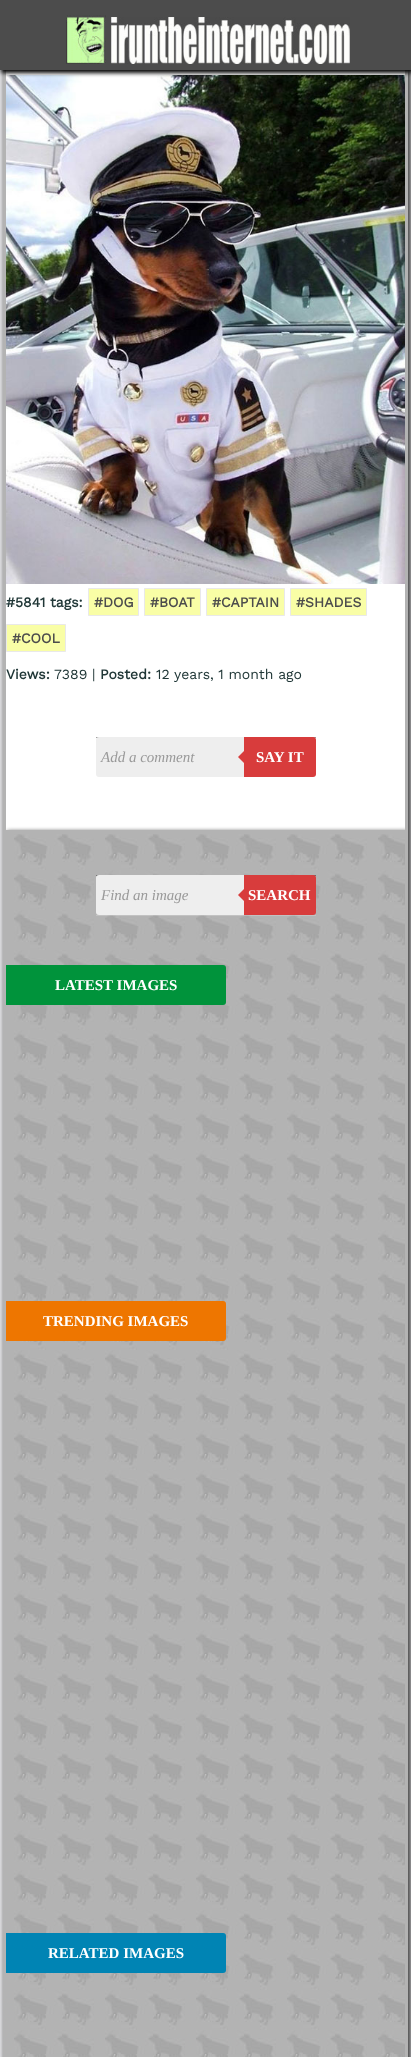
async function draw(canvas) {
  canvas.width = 411;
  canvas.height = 2057;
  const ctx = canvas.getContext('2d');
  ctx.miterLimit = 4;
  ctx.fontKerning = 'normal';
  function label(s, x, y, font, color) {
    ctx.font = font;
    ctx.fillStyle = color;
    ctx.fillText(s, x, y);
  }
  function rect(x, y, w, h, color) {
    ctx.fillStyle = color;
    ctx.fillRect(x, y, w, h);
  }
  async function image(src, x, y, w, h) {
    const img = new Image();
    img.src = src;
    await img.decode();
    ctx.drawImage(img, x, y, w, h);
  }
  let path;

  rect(0, 0, 411, 2057, '#dedee1');
  ctx.fillStyle = '#4c4c4c';
  ctx.filter = 'blur(2px)';
  ctx.beginPath();
  ctx.rect(4, 71, 407, 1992);
  ctx.fill();
  ctx.filter = 'none';
  rect(6, 70, 399, 760, '#fff');
  ctx.fillStyle = '#b3b3b3';
  path = new Path2D('M408 70V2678L405 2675V70Z');
  ctx.fill(path);
  path = new Path2D('M3 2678V70H6V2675Z');
  ctx.fill(path);
  await image('assets/img3.png', 6, 75, 399, 509);
  ctx.fillStyle = '#000';
  ctx.filter = 'blur(2px)';
  ctx.beginPath();
  ctx.rect(1, 1, 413, 72);
  ctx.fill();
  ctx.filter = 'none';
  rect(0, 0, 411, 70, '#4c4c4c');
  await image('assets/img1.png', 66, 15, 40, 49);
  await image('assets/img2.png', 111, 17, 239, 47);
  label('#5841 tags:', 6, 607, 'bold 14px Work Sans', '#203737');
  ctx.fillStyle = '#f9fea6';
  ctx.beginPath();
  ctx.rect(88.5, 588.5, 50, 27);
  ctx.fill();
  ctx.strokeStyle = '#e9e9e9';
  ctx.stroke();
  label('#DOG', 94, 607, 'bold 14px Work Sans', '#4c4c4c');
  ctx.fillStyle = '#f9fea6';
  ctx.beginPath();
  ctx.rect(144.5, 588.5, 56, 27);
  ctx.fill();
  ctx.stroke();
  label('#BOAT', 150, 607, 'bold 14px Work Sans', '#4c4c4c');
  ctx.fillStyle = '#f9fea6';
  ctx.beginPath();
  ctx.rect(206.5, 588.5, 78, 27);
  ctx.fill();
  ctx.stroke();
  label('#CAPTAIN', 212, 607, 'bold 14px Work Sans', '#4c4c4c');
  ctx.fillStyle = '#f9fea6';
  ctx.beginPath();
  ctx.rect(290.5, 588.5, 76, 27);
  ctx.fill();
  ctx.stroke();
  label('#SHADES', 296, 607, 'bold 14px Work Sans', '#4c4c4c');
  ctx.fillStyle = '#f9fea6';
  ctx.beginPath();
  ctx.rect(6.5, 624.5, 59, 27);
  ctx.fill();
  ctx.stroke();
  label('#COOL', 12, 643, 'bold 14px Work Sans', '#4c4c4c');
  label('Views:', 6, 679, 'bold 14px Work Sans', '#203737');
  label('7389 |', 54, 679, '14px Work Sans', '#203737');
  label('Posted:', 100, 679, 'bold 14px Work Sans', '#203737');
  label('12 years, 1 month ago', 156, 679, '14px Work Sans', '#203737');
  rect(96, 737, 220, 1, '#999');
  ctx.fillStyle = '#eee';
  ctx.beginPath();
  ctx.roundRect(96, 737, 148, 40, [3, 0, 0, 3]);
  ctx.fill();
  label('Add a comment', 101, 762, 'italic 15px Liberation Serif', '#999');
  ctx.fillStyle = '#d83c3c';
  ctx.beginPath();
  ctx.roundRect(244, 737, 72, 40, [0, 3, 3, 0]);
  ctx.fill();
  path = new Path2D('M246 749V765L238 757Z');
  ctx.fill(path);
  label('SAY IT', 256, 762, 'bold 15px Liberation Serif', '#fff');
  ctx.save();
  ctx.beginPath();
  ctx.rect(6, 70, 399, 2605);
  ctx.clip();
  ctx.fillStyle = '#4c4c4c';
  ctx.filter = 'blur(2px)';
  ctx.beginPath();
  ctx.rect(7, 831, 401, 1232);
  ctx.fill();
  ctx.filter = 'none';
  ctx.restore();
  rect(6, 830, 399, 1227, '#b3b3b3');
  await image('assets/img4.png', 14, 834, 391, 1223);
  rect(96, 915, 220, 1, '#ffffff33');
  rect(96, 875, 220, 1, '#00000066');
  ctx.fillStyle = '#eee';
  ctx.beginPath();
  ctx.roundRect(96, 875, 148, 40, [3, 0, 0, 3]);
  ctx.fill();
  label('Find an image', 101, 900, 'italic 15px Liberation Serif', '#999');
  ctx.fillStyle = '#d83c3c';
  ctx.beginPath();
  ctx.roundRect(244, 875, 72, 40, [0, 3, 3, 0]);
  ctx.fill();
  path = new Path2D('M246 887V903L238 895Z');
  ctx.fill(path);
  label('SEARCH', 248, 900, 'bold 15px Liberation Serif', '#fff');
  ctx.fillStyle = '#00933b';
  ctx.beginPath();
  ctx.roundRect(6, 965, 220, 40, [0, 3, 3, 0]);
  ctx.fill();
  label('LATEST IMAGES', 55, 990, 'bold 15px Liberation Serif', '#fff');
  ctx.fillStyle = '#ee7600';
  ctx.beginPath();
  ctx.roundRect(6, 1301, 220, 40, [0, 3, 3, 0]);
  ctx.fill();
  label('TRENDING IMAGES', 43, 1326, 'bold 15px Liberation Serif', '#fff');
  ctx.fillStyle = '#0084b4';
  ctx.beginPath();
  ctx.roundRect(6, 1933, 220, 40, [0, 3, 3, 0]);
  ctx.fill();
  label('RELATED IMAGES', 48, 1958, 'bold 15px Liberation Serif', '#fff');
}

draw(document.querySelector('canvas'));
